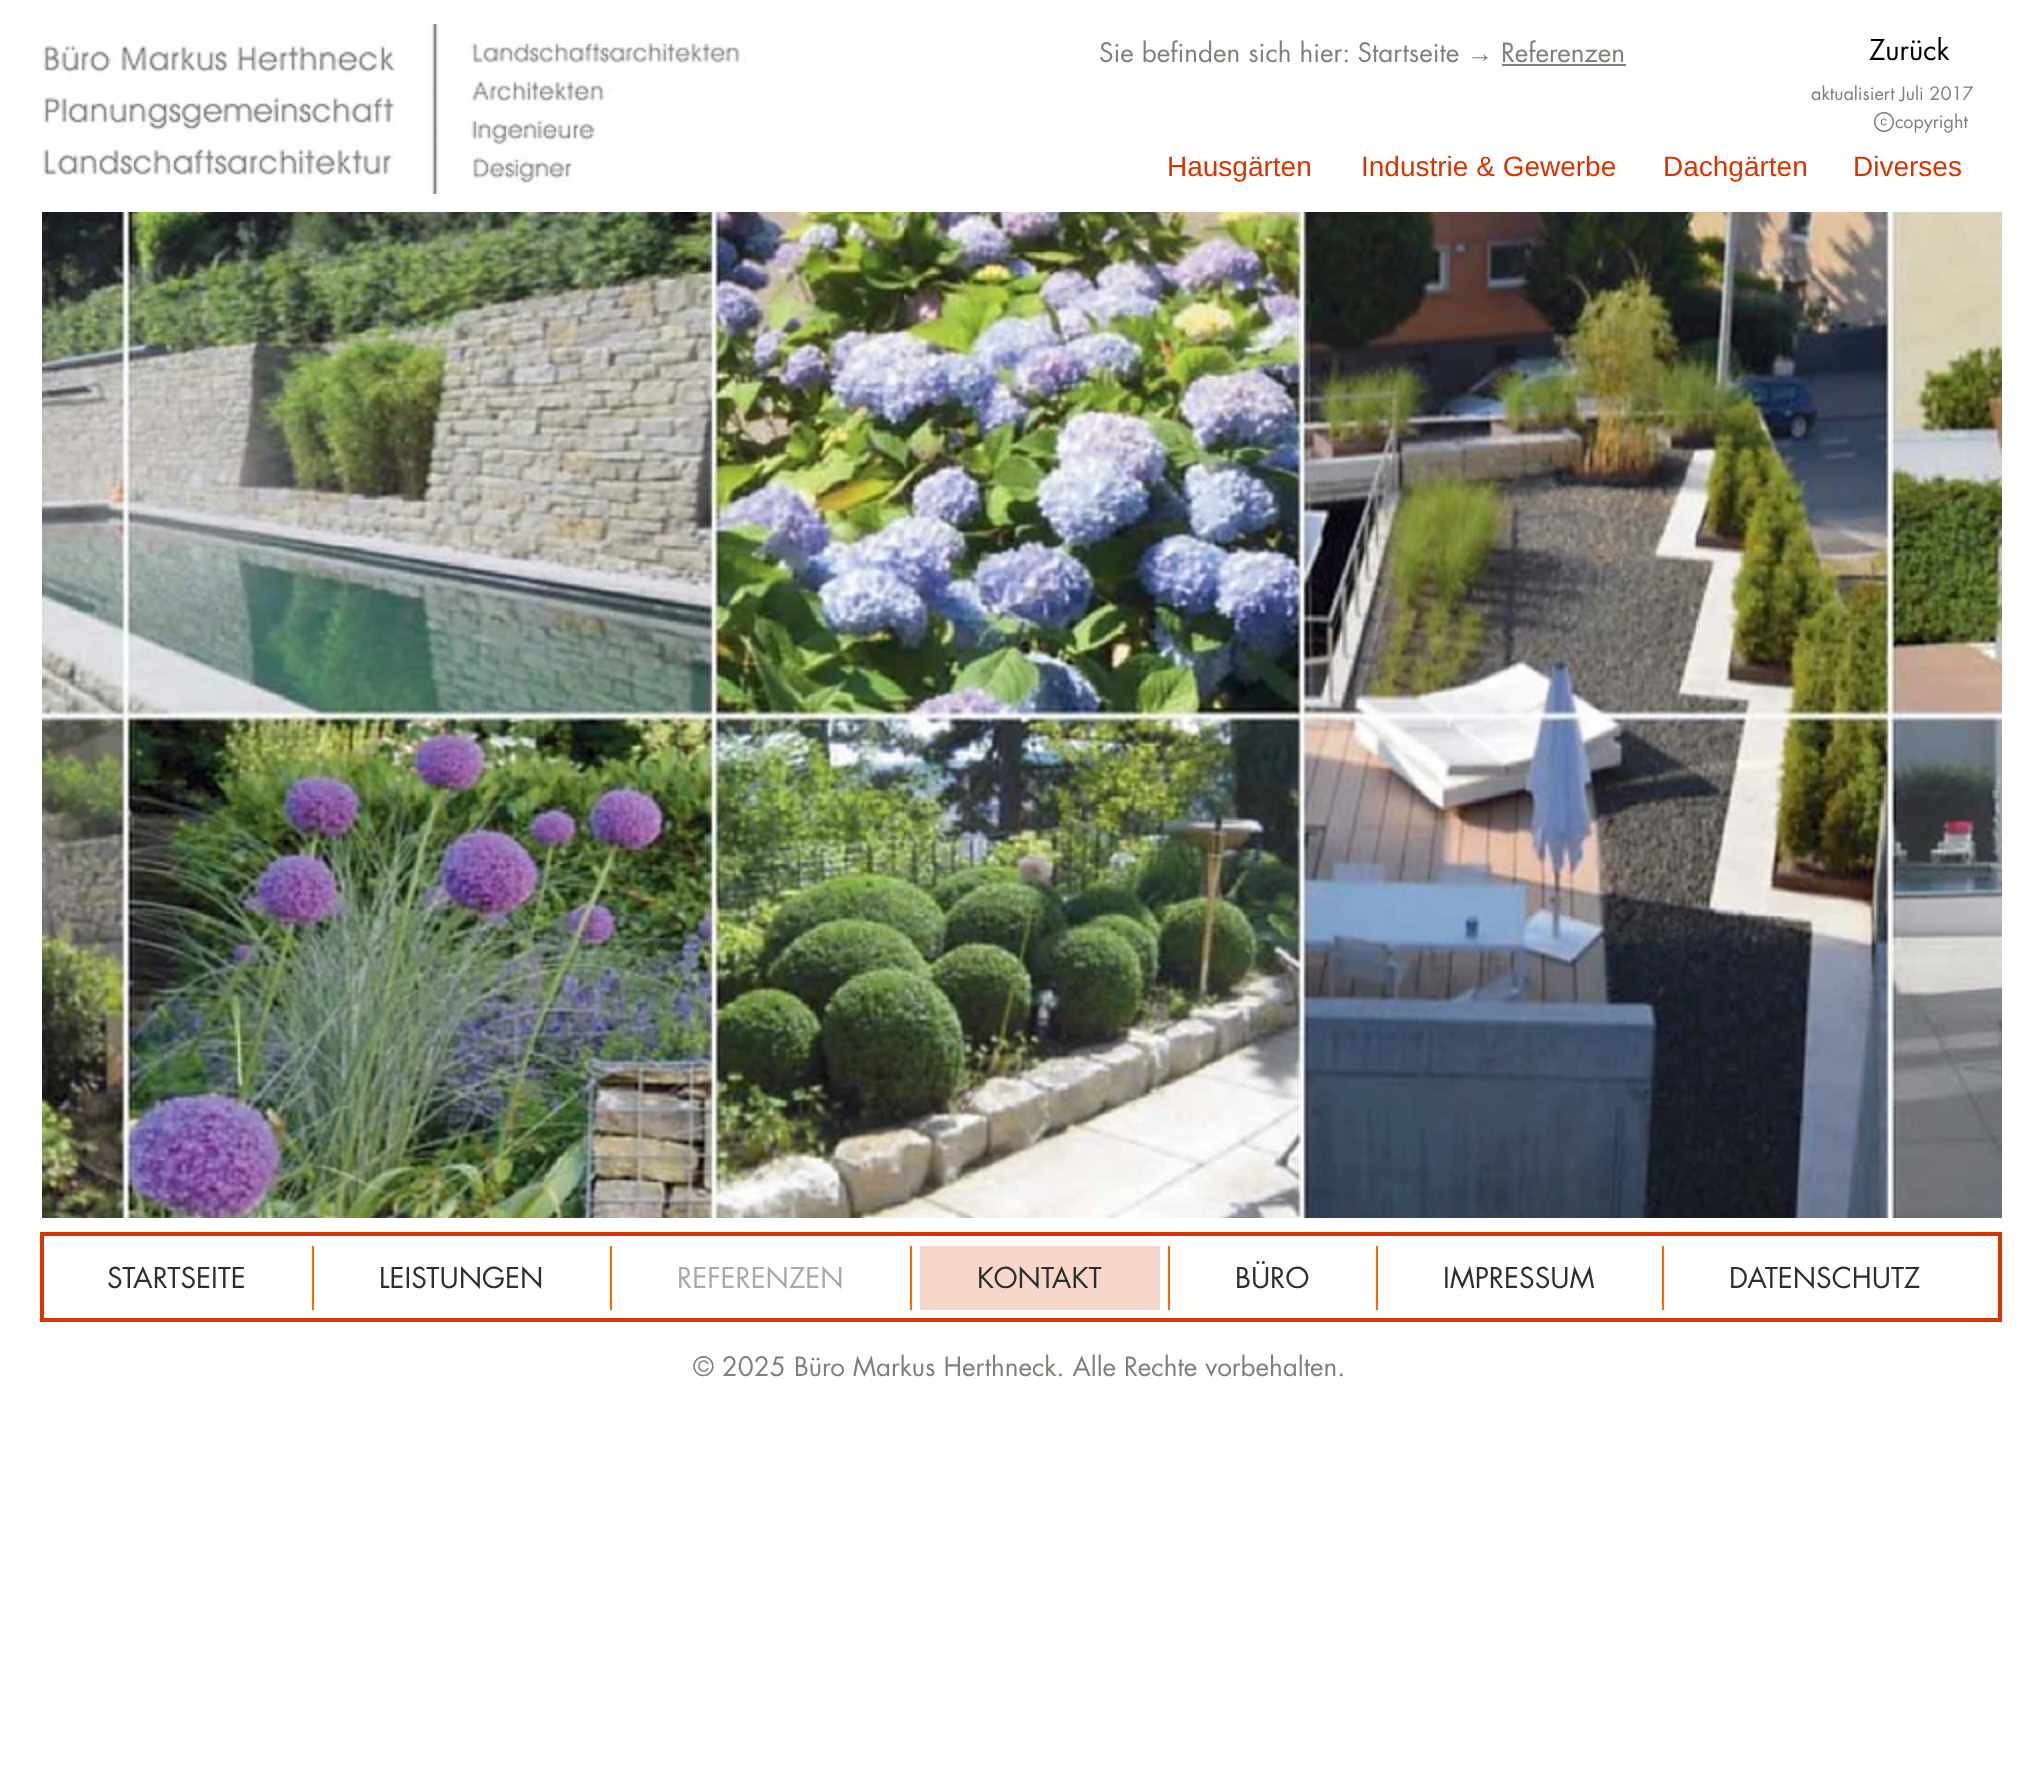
async function draw(canvas) {
  canvas.width = 2037;
  canvas.height = 1768;
  const ctx = canvas.getContext('2d');
  ctx.miterLimit = 4;
  ctx.fontKerning = 'normal';
  function label(s, x, y, font, color) {
    ctx.font = font;
    ctx.fillStyle = color;
    ctx.fillText(s, x, y);
  }
  function rect(x, y, w, h, color) {
    ctx.fillStyle = color;
    ctx.fillRect(x, y, w, h);
  }
  async function image(src, x, y, w, h) {
    const img = new Image();
    img.src = src;
    await img.decode();
    ctx.drawImage(img, x, y, w, h);
  }
  let path;

  rect(0, 0, 2037, 1768, '#fff');
  label('→', 1467, 62, '26px Liberation Sans', '#827f7a');
  label('Referenzen', 1501, 62, '26px futura', '#827f7a');
  rect(1502, 64, 124, 2, '#827f7a');
  label('Zurück', 1869, 60, '28px futura', '#000');
  label('aktualisiert Juli 2017', 1811, 100, '18px futura', '#827f7a');
  await image('assets/img1.png', 1874, 112, 20, 20);
  label('copyright', 1895, 128, '18px futura', '#827f7a');
  label('Hausgärten', 1167, 176, '28px Liberation Sans', '#d73400');
  label('Industrie & Gewerbe', 1361, 176, '28px Liberation Sans', '#d73400');
  label('Dachgärten', 1663, 176, '28px Liberation Sans', '#d73400');
  label('Diverses', 1853, 176, '28px Liberation Sans', '#d73400');
  await image('assets/img2.png', 42, 212, 1960, 1006);
  await image('assets/img3.png', 42, 24, 704, 170);
  label('Sie befinden sich hier: Startseite', 1099, 62, '26px futura', '#827f7a');
  rect(920, 1246, 240, 64, '#f7d6cc');
  path = new Path2D('M2000 1234V1320H42V1234Z');
  ctx.strokeStyle = '#d73400';
  ctx.lineWidth = 4;
  ctx.stroke(path);
  label('STARTSEITE', 107, 1288, '28px futura', '#2f2e2e');
  rect(312, 1246, 2, 64, '#f60');
  label('LEISTUNGEN', 379, 1288, '28px futura', '#2f2e2e');
  rect(610, 1246, 2, 64, '#f60');
  label('REFERENZEN', 677, 1288, '28px futura', '#a9a9a9');
  rect(910, 1246, 2, 64, '#f60');
  label('KONTAKT', 977, 1288, '28px futura', '#2f2e2e');
  rect(1168, 1246, 2, 64, '#f60');
  label('BÜRO', 1235, 1288, '28px futura', '#2f2e2e');
  rect(1376, 1246, 2, 64, '#f60');
  label('IMPRESSUM', 1443, 1288, '28px futura', '#2f2e2e');
  rect(1662, 1246, 2, 64, '#f60');
  label('DATENSCHUTZ', 1729, 1288, '28px futura', '#2f2e2e');
  label('© 2025 Büro Markus Herthneck. Alle Rechte vorbehalten.', 693, 1376, '26px futura', '#827f7a');
}

draw(document.querySelector('canvas'));
